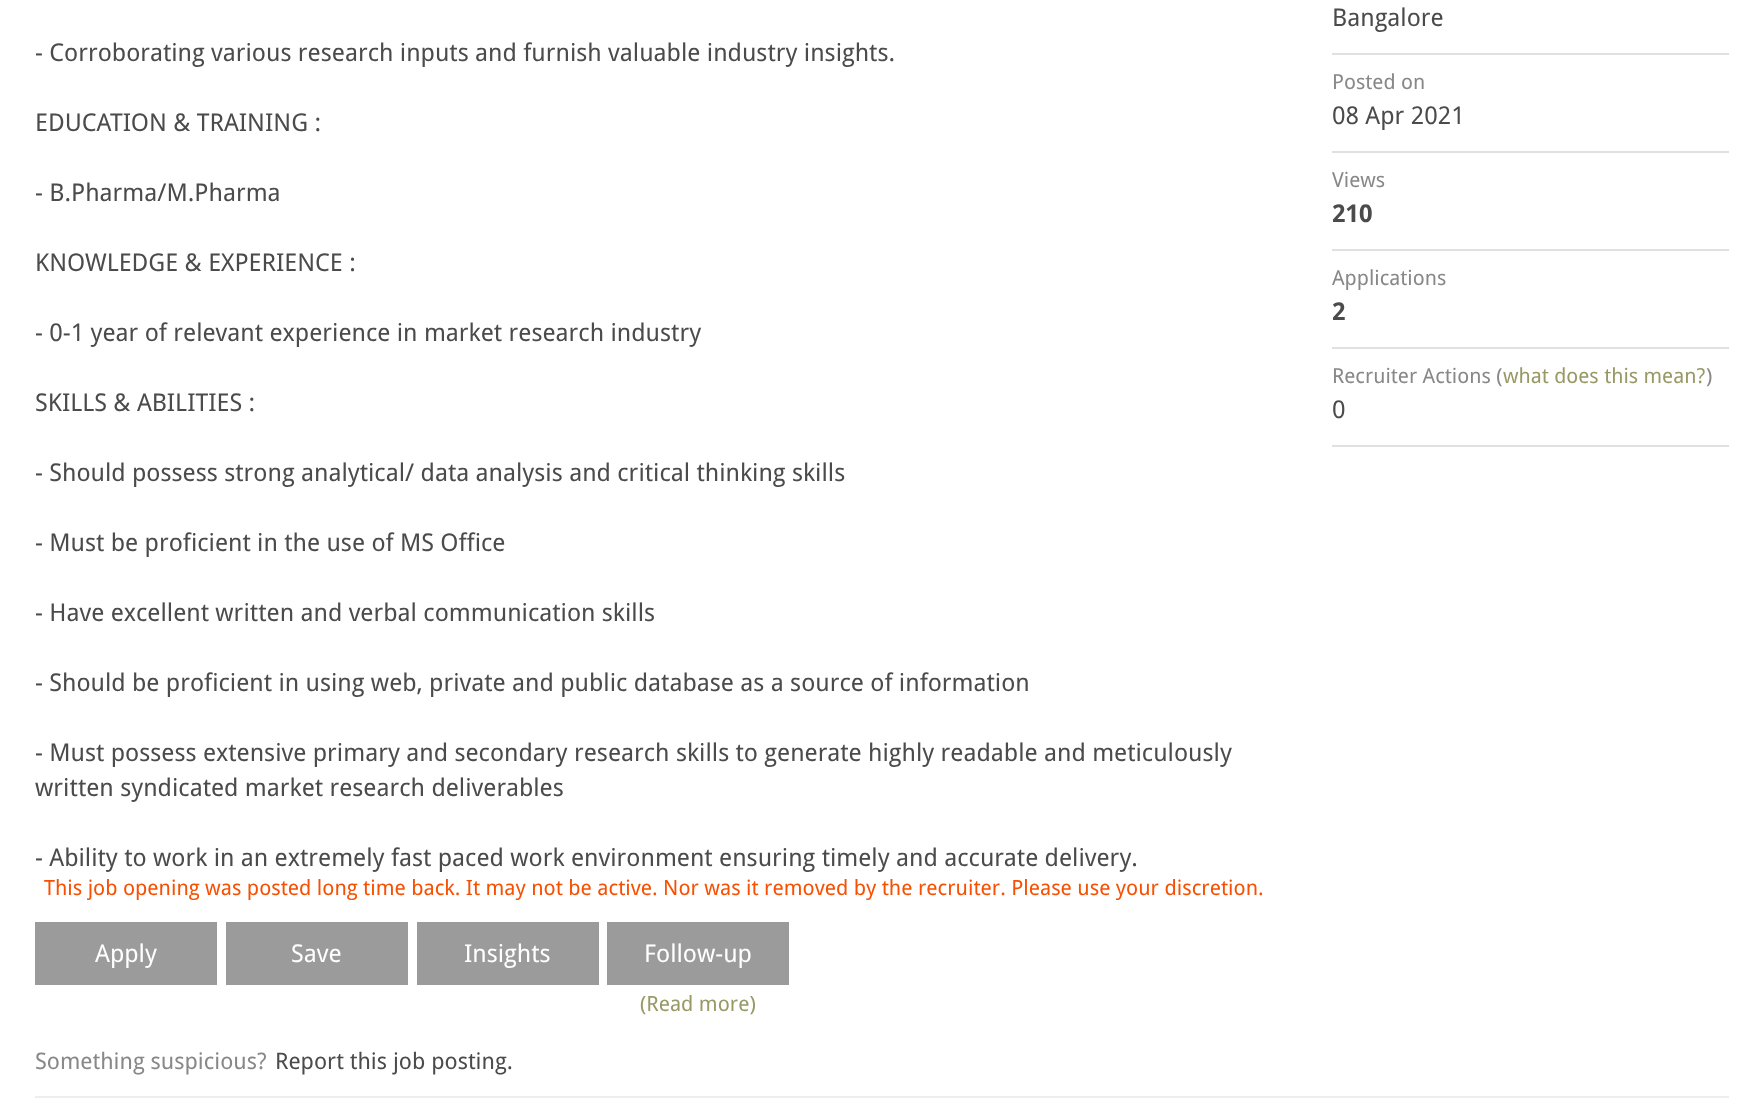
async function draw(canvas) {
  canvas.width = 1764;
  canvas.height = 1118;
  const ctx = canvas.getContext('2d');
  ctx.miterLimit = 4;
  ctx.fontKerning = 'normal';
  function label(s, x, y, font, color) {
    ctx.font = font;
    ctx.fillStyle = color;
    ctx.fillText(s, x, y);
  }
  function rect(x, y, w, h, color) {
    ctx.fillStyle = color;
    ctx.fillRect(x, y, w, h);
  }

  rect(0, 0, 1764, 1118, '#fff');
  label('- Corroborating various research inputs and furnish valuable industry insights.', 35, 61, '24.5px Droid Sans', '#4b4b4b');
  label('EDUCATION & TRAINING :', 35, 131, '24.5px Droid Sans', '#4b4b4b');
  label('- B.Pharma/M.Pharma', 35, 201, '24.5px Droid Sans', '#4b4b4b');
  label('KNOWLEDGE & EXPERIENCE :', 35, 271, '24.5px Droid Sans', '#4b4b4b');
  label('- 0-1 year of relevant experience in market research industry', 35, 341, '24.5px Droid Sans', '#4b4b4b');
  label('SKILLS & ABILITIES :', 35, 411, '24.5px Droid Sans', '#4b4b4b');
  label('- Should possess strong analytical/ data analysis and critical thinking skills', 35, 481, '24.5px Droid Sans', '#4b4b4b');
  label('- Must be proficient in the use of MS Office', 35, 551, '24.5px Droid Sans', '#4b4b4b');
  label('- Have excellent written and verbal communication skills', 35, 621, '24.5px Droid Sans', '#4b4b4b');
  label('- Should be proficient in using web, private and public database as a source of information', 35, 691, '24.5px Droid Sans', '#4b4b4b');
  label('- Must possess extensive primary and secondary research skills to generate highly readable and meticulously', 35, 761, '24.5px Droid Sans', '#4b4b4b');
  label('written syndicated market research deliverables', 35, 796, '24.5px Droid Sans', '#4b4b4b');
  label('- Ability to work in an extremely fast paced work environment ensuring timely and accurate delivery.', 35, 866, '24.5px Droid Sans', '#4b4b4b');
  label('This job opening was posted long time back. It may not be active. Nor was it removed by the recruiter. Please use your discretion.', 44, 895, '21px Droid Sans', '#f75002');
  rect(35, 922, 182, 63, '#9b9b9b');
  label('Apply', 95, 962, '24.5px Droid Sans', '#fff');
  rect(226, 922, 182, 63, '#9b9b9b');
  label('Save', 291, 962, '24.5px Droid Sans', '#fff');
  rect(417, 922, 182, 63, '#9b9b9b');
  label('Insights', 464, 962, '24.5px Droid Sans', '#fff');
  rect(607, 922, 182, 63, '#9b9b9b');
  label('Follow-up', 644, 962, '24.5px Droid Sans', '#fff');
  label('(Read more)', 640, 1011, '21px Droid Sans', '#996');
  label('Something suspicious?', 35, 1069, '22.75px Droid Sans', '#888');
  label('Report this job posting.', 275, 1069, '22.75px Droid Sans', '#4b4b4b');
  rect(1332, 53, 397, 2, '#e0e0e0');
  label('Bangalore', 1332, 26, '24.5px Droid Sans', '#4b4b4b');
  rect(1332, 151, 397, 2, '#e0e0e0');
  label('Posted on', 1332, 89, '20.75px Droid Sans', '#888');
  label('08 Apr 2021', 1332, 124, '24.5px Droid Sans', '#4b4b4b');
  rect(1332, 249, 397, 2, '#e0e0e0');
  label('Views', 1332, 187, '20.75px Droid Sans', '#888');
  label('210', 1332, 222, 'bold 24.5px Droid Sans', '#4b4b4b');
  rect(1332, 347, 397, 2, '#e0e0e0');
  label('Applications', 1332, 285, '20.75px Droid Sans', '#888');
  label('2', 1332, 320, 'bold 24.5px Droid Sans', '#4b4b4b');
  rect(1332, 445, 397, 2, '#e0e0e0');
  label('Recruiter Actions (', 1332, 383, '20.75px Droid Sans', '#888');
  label('what does this mean?', 1503, 383, '20.75px Droid Sans', '#996');
  label(')', 1706, 383, '20.75px Droid Sans', '#888');
  label('0', 1332, 418, '24.5px Droid Sans', '#4b4b4b');
  rect(35, 1096, 1694, 2, '#eee');
}

draw(document.querySelector('canvas'));
